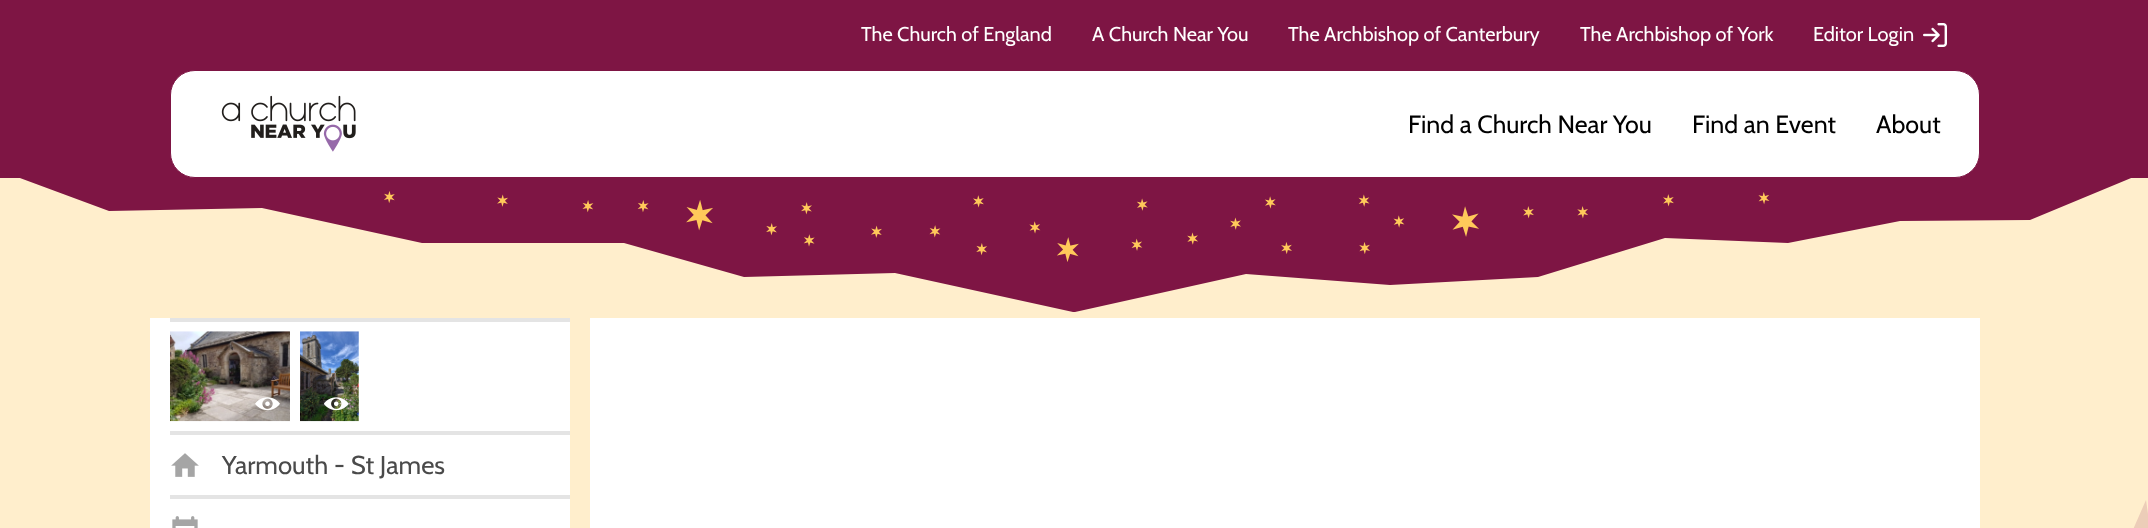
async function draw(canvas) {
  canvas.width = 2148;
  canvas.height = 528;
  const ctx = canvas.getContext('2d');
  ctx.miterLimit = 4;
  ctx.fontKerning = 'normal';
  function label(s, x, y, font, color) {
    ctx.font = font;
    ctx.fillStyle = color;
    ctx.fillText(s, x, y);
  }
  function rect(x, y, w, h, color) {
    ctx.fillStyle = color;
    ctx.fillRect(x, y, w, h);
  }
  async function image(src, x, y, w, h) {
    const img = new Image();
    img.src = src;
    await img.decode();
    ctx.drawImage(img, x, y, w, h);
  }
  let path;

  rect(0, 0, 2148, 528, '#fec');
  rect(0, 0, 2148, 178, '#7e1544');
  label('The Church of England', 861, 41, '20px Cabin', '#fff');
  label('A Church Near You', 1092, 41, '20px Cabin', '#fff');
  label('The Archbishop of Canterbury', 1288, 41, '20px Cabin', '#fff');
  label('The Archbishop of York', 1580, 41, '20px Cabin', '#fff');
  label('Editor Login', 1813, 41, '20px Cabin', '#fff');
  await image('assets/img1.png', 1923, 23, 24, 24);
  ctx.fillStyle = '#7e1544';
  path = new Path2D('M262 208L109 211L1 171H2148L2030 220L1900 221L1788 243L1665 238L1538 277L1390 285L1246 274L1075 312H1073L895 273L744 277L624 243H422Z');
  ctx.fill(path);
  ctx.fillStyle = '#fff';
  ctx.beginPath();
  ctx.roundRect(170.5, 70.5, 1809, 107, 24.5);
  ctx.fill();
  ctx.strokeStyle = '#7e1544';
  ctx.stroke();
  await image('assets/img2.png', 221, 95, 135, 57);
  label('Find a Church Near You', 1408, 133, '25px Cabin', '#000');
  label('Find an Event', 1692, 133, '25px Cabin', '#000');
  label('About', 1876, 133, '25px Cabin', '#000');
  await image('assets/img3.png', 384, 191, 1386, 71);
  ctx.fillStyle = '#eccdb8';
  path = new Path2D('M1961 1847L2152 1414L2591 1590L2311 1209L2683 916L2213 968L2146 500L1956 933L1516 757L1796 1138L1424 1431L1894 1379Z');
  ctx.fill(path);
  rect(150, 318, 420, 210, '#fff');
  rect(170, 318, 400, 4, '#e4e4e4');
  rect(170, 431, 400, 4, '#e4e4e4');
  await image('assets/img4.png', 170, 331, 120, 91);
  await image('assets/img5.png', 255, 397, 25, 14);
  await image('assets/img6.png', 300, 331, 59, 91);
  await image('assets/img7.png', 324, 397, 25, 14);
  await image('assets/img8.png', 171, 453, 28, 24);
  label('Yarmouth - St James', 222, 474, '25.75px Cabin', '#4a4a4a');
  rect(170, 495, 400, 4, '#e4e4e4');
  await image('assets/img9.png', 172, 516, 26, 12);
  rect(590, 318, 1390, 210, '#fff');
}

draw(document.querySelector('canvas'));
